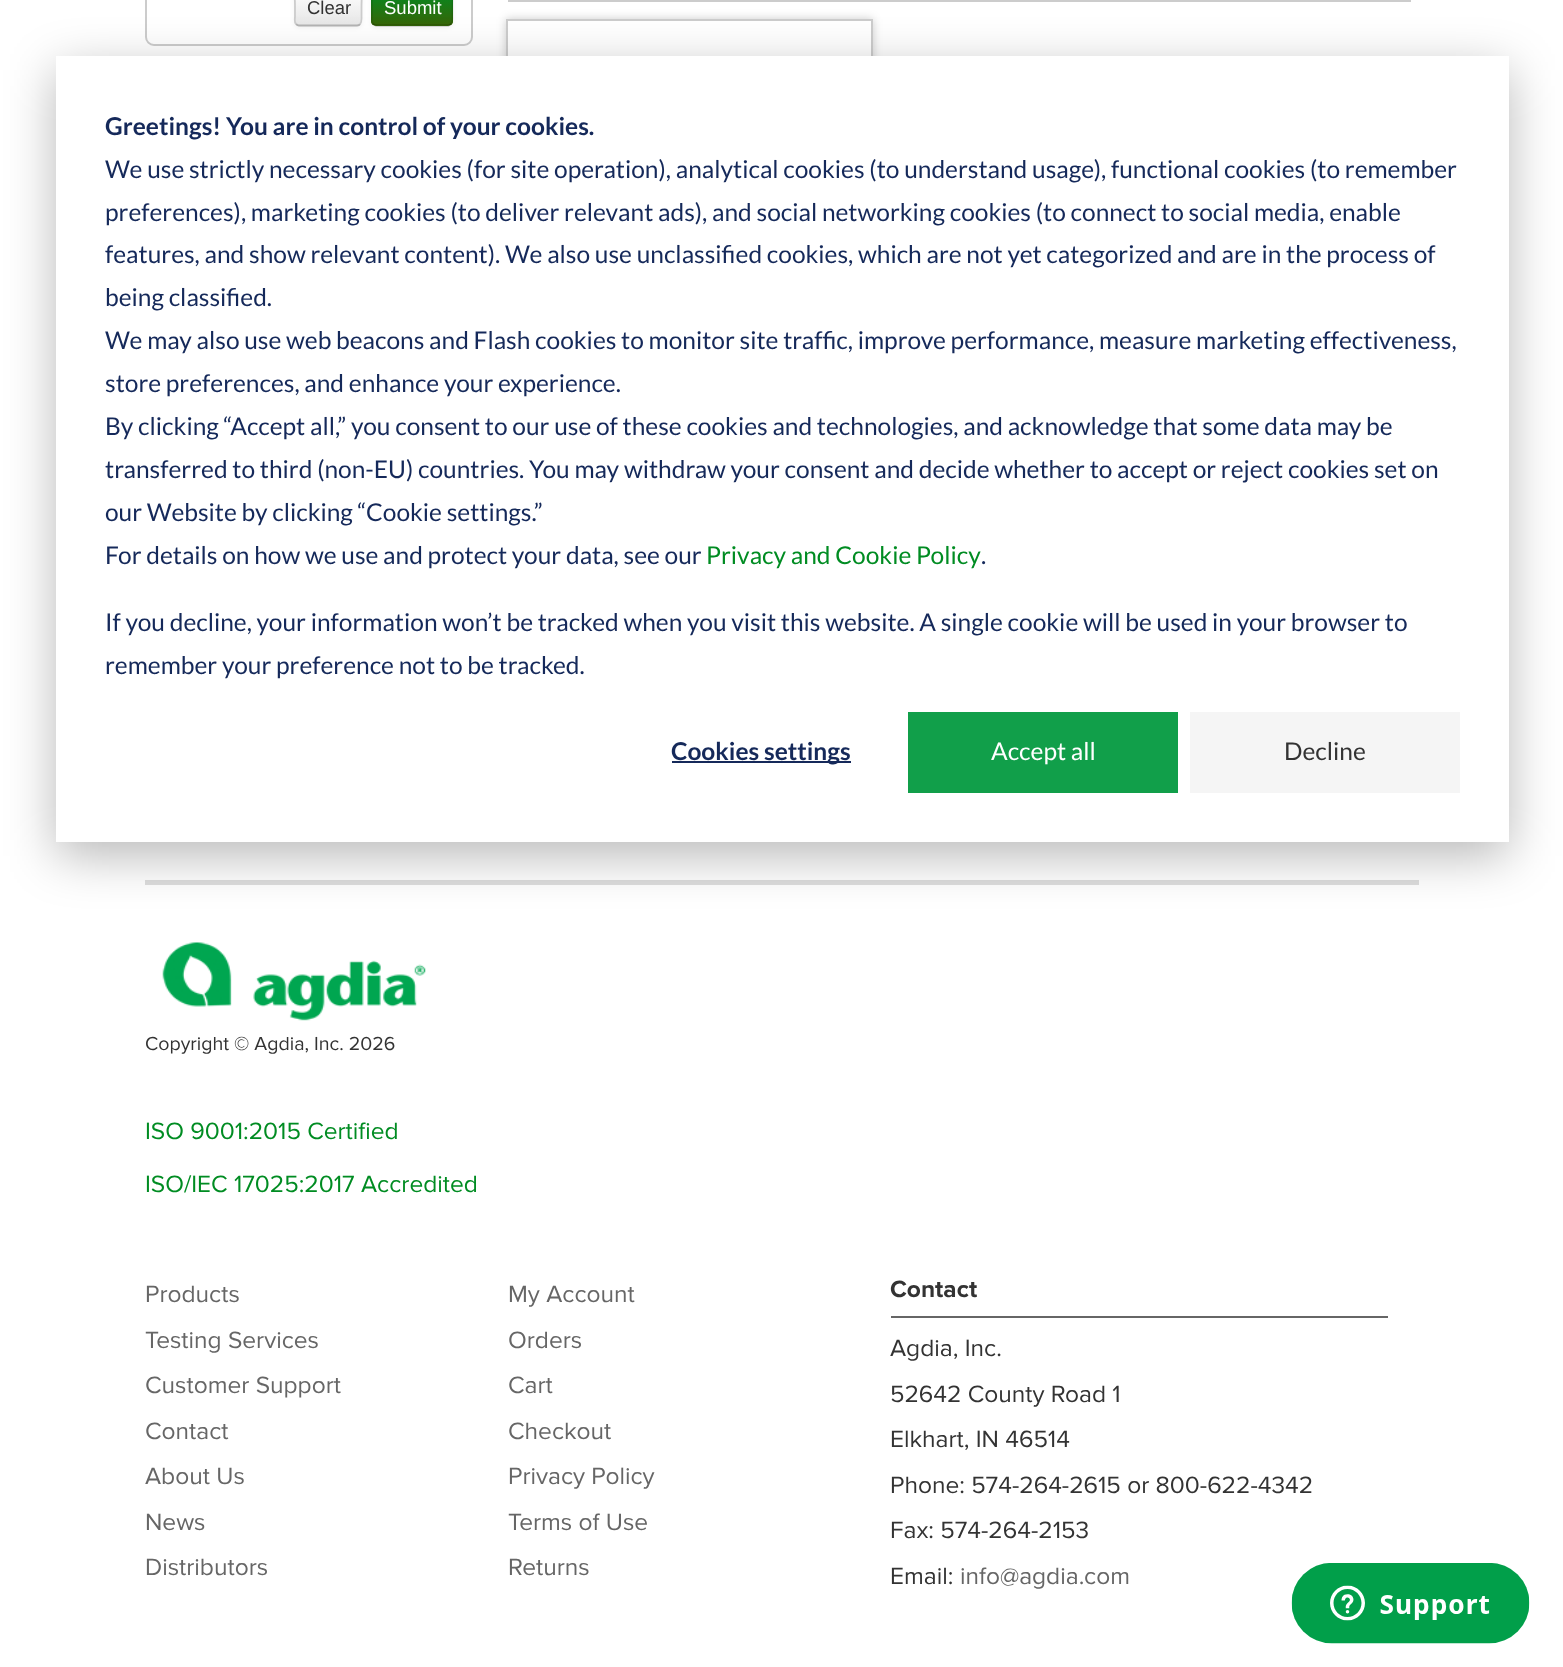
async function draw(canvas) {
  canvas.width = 1563;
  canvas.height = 1667;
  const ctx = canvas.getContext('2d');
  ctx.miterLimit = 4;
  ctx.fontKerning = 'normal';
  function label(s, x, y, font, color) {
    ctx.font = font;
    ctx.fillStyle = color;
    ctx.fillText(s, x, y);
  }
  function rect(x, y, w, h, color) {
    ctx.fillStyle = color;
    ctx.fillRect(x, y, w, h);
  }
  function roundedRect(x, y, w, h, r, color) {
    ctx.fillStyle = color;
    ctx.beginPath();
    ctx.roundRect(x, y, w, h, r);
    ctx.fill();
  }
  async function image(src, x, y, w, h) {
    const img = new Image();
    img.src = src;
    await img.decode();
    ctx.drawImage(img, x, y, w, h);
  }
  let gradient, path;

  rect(0, 0, 1563, 1667, '#fff');
  ctx.beginPath();
  ctx.roundRect(146, -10, 326, 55, 8);
  ctx.strokeStyle = '#ccc';
  ctx.lineWidth = 2;
  ctx.stroke();
  ctx.fillStyle = '#0000000d';
  ctx.filter = 'blur(2px)';
  ctx.beginPath();
  ctx.roundRect(294, -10, 68, 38, 5);
  ctx.fill();
  ctx.filter = 'none';
  ctx.save();
  ctx.beginPath();
  ctx.roundRect(294, -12, 68, 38, 5);
  ctx.clip();
  gradient = ctx.createLinearGradient(328, -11, 328, 25);
  gradient.addColorStop(0, '#fff');
  gradient.addColorStop(1, '#e6e6e6');
  ctx.fillStyle = gradient;
  ctx.fillRect(294, 0, 68, 25);
  ctx.restore();
  ctx.fillStyle = '#ffffff33';
  path = new Path2D('M299-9H347C362-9 360-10 360 4V24C362 21 361 11 361 8C361-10 365-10 348-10H300C298-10 297-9 296-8V-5C296-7 297-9 299-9Z');
  ctx.fill(path);
  path = new Path2D('M360 24C359.5 25 358 25.5 357 25.5H299C298 25.5 297 25 296 24');
  ctx.strokeStyle = '#b3b3b3';
  ctx.lineWidth = 1.8;
  ctx.stroke(path);
  path = new Path2D('M296 24C294 22 295 18.5 295 16.5V7C295-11.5 291.5-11.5 309-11.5H347.5C365-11.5 361.5-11.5 361.5 7V16.5C361.5 18.5 362 22 360 24');
  ctx.strokeStyle = '#ccc';
  ctx.stroke(path);
  label('Clear', 307, 14, '18.5px Liberation Sans', '#333');
  ctx.fillStyle = '#0000000d';
  ctx.filter = 'blur(2px)';
  ctx.beginPath();
  ctx.roundRect(371, -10, 82, 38, 5);
  ctx.fill();
  ctx.filter = 'none';
  roundedRect(371, -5, 82, 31, 5, '#45810e');
  ctx.save();
  ctx.beginPath();
  ctx.roundRect(371, -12, 82, 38, 5);
  ctx.clip();
  gradient = ctx.createLinearGradient(412, -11, 412, 25);
  gradient.addColorStop(0, '#008c22');
  gradient.addColorStop(1, '#376608');
  ctx.fillStyle = gradient;
  ctx.fillRect(371, 0, 82, 25);
  ctx.restore();
  path = new Path2D('M451 24L448.5 25.5H376L373 24');
  ctx.strokeStyle = '#00000040';
  ctx.stroke(path);
  path = new Path2D('M373 24C371 22 372 18.5 372 16.5V7C372-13 368.5-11.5 388-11.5H436C455.5-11.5 452.5-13 452.5 7V16.5C452.5 18.5 453 22 451 24');
  ctx.strokeStyle = '#0000001a';
  ctx.stroke(path);
  label('Submit', 384, 14, '18.5px Liberation Sans', '#fff');
  rect(508, 0, 903, 2, '#ccc');
  ctx.fillStyle = '#00000033';
  ctx.filter = 'blur(5px)';
  ctx.beginPath();
  ctx.rect(506, 19, 367, 368);
  ctx.fill();
  ctx.filter = 'none';
  rect(508, 21, 363, 35, '#fff');
  ctx.strokeStyle = '#ccc';
  ctx.lineWidth = 2;
  ctx.strokeRect(507, 20, 365, 366);
  rect(145, 880, 1274, 5, '#ddd');
  await image('assets/img1.png', 162, 942, 264, 79);
  label('Copyright © Agdia, Inc. 2026', 145, 1050, '19.6px Proxima Nova', '#333');
  label('ISO 9001:2015 Certified', 145, 1139, '24.5px Proxima Nova', '#008c22');
  label('ISO/IEC 17025:2017 Accredited', 145, 1192, '24.5px Proxima Nova', '#008c22');
  label('Products', 145, 1302, '24.5px Proxima Nova', '#666');
  label('Testing Services', 145, 1348, '24.5px Proxima Nova', '#666');
  label('Customer Support', 145, 1393, '24.5px Proxima Nova', '#666');
  label('Contact', 145, 1439, '24.5px Proxima Nova', '#666');
  label('About Us', 145, 1484, '24.5px Proxima Nova', '#666');
  label('News', 145, 1530, '24.5px Proxima Nova', '#666');
  label('Distributors', 145, 1575, '24.5px Proxima Nova', '#666');
  label('My Account', 508, 1302, '24.5px Proxima Nova', '#666');
  label('Orders', 508, 1348, '24.5px Proxima Nova', '#666');
  label('Cart', 508, 1393, '24.5px Proxima Nova', '#666');
  label('Checkout', 508, 1439, '24.5px Proxima Nova', '#666');
  label('Privacy Policy', 508, 1484, '24.5px Proxima Nova', '#666');
  label('Terms of Use', 508, 1530, '24.5px Proxima Nova', '#666');
  label('Returns', 508, 1575, '24.5px Proxima Nova', '#666');
  rect(891, 1316, 497, 2, '#666');
  label('Contact', 890, 1297, 'bold 24.5px Proxima Nova', '#333');
  label('Agdia, Inc.', 890, 1356, '24.5px Proxima Nova', '#333');
  label('52642 County Road 1', 890, 1402, '24.5px Proxima Nova', '#333');
  label('Elkhart, IN 46514', 890, 1447, '24.5px Proxima Nova', '#333');
  label('Phone: 574-264-2615 or 800-622-4342', 890, 1493, '24.5px Proxima Nova', '#333');
  label('Fax: 574-264-2153', 890, 1538, '24.5px Proxima Nova', '#333');
  label('Email:', 890, 1584, '24.5px Proxima Nova', '#333');
  label('info@agdia.com', 960, 1584, '24.5px Proxima Nova', '#666');
  ctx.fillStyle = '#00000047';
  ctx.filter = 'blur(24.5px)';
  ctx.beginPath();
  ctx.rect(56, 70, 1453, 786);
  ctx.fill();
  ctx.filter = 'none';
  rect(56, 56, 1453, 786, '#fff');
  label('Greetings! You are in control of your cookies.', 105, 135, 'bold 24.5px Lato', '#15295a');
  label('We use strictly necessary cookies (for site operation), analytical cookies (to understand usage), functional cookies (to remember', 105, 178, '24.5px Lato', '#15295a');
  label('preferences), marketing cookies (to deliver relevant ads), and social networking cookies (to connect to social media, enable', 105, 221, '24.5px Lato', '#15295a');
  label('features, and show relevant content). We also use unclassified cookies, which are not yet categorized and are in the process of', 105, 263, '24.5px Lato', '#15295a');
  label('being classified.', 105, 306, '24.5px Lato', '#15295a');
  label('We may also use web beacons and Flash cookies to monitor site traffic, improve performance, measure marketing effectiveness,', 105, 349, '24.5px Lato', '#15295a');
  label('store preferences, and enhance your experience.', 105, 392, '24.5px Lato', '#15295a');
  label('By clicking “Accept all,” you consent to our use of these cookies and technologies, and acknowledge that some data may be', 105, 435, '24.5px Lato', '#15295a');
  label('transferred to third (non-EU) countries. You may withdraw your consent and decide whether to accept or reject cookies set on', 105, 478, '24.5px Lato', '#15295a');
  label('our Website by clicking “Cookie settings.”', 105, 521, '24.5px Lato', '#15295a');
  label('For details on how we use and protect your data, see our', 105, 564, '24.5px Lato', '#15295a');
  label('Privacy and Cookie Policy', 706, 564, '24.5px Lato', '#008c22');
  label('.', 981, 564, '24.5px Lato', '#15295a');
  label('If you decline, your information won’t be tracked when you visit this website. A single cookie will be used in your browser to', 105, 631, '24.5px Lato', '#15295a');
  label('remember your preference not to be tracked.', 105, 674, '24.5px Lato', '#15295a');
  rect(672, 761, 179, 2, '#15295a');
  label('Cookies settings', 671, 760, 'bold 24.5px Lato', '#15295a');
  rect(908, 712, 270, 81, '#119f4a');
  label('Accept all', 991, 760, '24.5px Lato', '#fff');
  rect(1190, 712, 270, 81, '#f5f5f5');
  label('Decline', 1284, 760, '24.5px Lato', '#333');
  await image('assets/img2.png', 1291, 1563, 239, 81);
}

draw(document.querySelector('canvas'));
